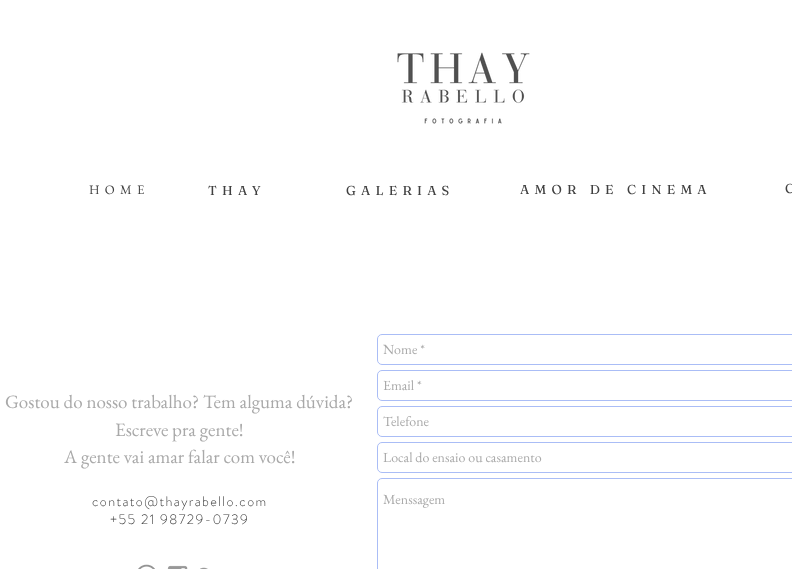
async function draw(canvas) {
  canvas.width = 792;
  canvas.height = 569;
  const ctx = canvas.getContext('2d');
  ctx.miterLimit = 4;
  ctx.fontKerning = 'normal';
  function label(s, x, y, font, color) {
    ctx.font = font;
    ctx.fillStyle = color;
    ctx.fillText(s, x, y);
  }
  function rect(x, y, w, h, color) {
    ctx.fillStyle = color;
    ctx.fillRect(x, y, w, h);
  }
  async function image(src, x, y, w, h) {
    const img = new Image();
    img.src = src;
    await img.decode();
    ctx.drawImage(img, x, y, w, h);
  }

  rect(0, 0, 792, 569, '#fff');
  await image('assets/img1.png', 397, 52, 133, 72);
  ctx.letterSpacing = '5.25px';
  label('HOME', 89, 194, '13px EB Garamond', '#404040');
  label('THAY', 208, 195, '13px Fraunces', '#404040');
  label('GALERIAS', 346, 195, '13px Fraunces', '#404040');
  label('AMOR DE CINEMA', 520, 194, '13px Fraunces', '#404040');
  label('C', 785, 193, '13px Fraunces', '#404040');
  ctx.letterSpacing = '0px';
  label('Gostou do nosso trabalho? Tem alguma dúvida?', 5, 408, '19px EB Garamond', '#a9a9a9');
  label('Escreve pra gente!', 115, 436, '19px EB Garamond', '#a9a9a9');
  label('A gente vai amar falar com você!', 64, 463, '19px EB Garamond', '#a9a9a9');
  ctx.letterSpacing = '1.4px';
  label('contato@thayrabello.com', 92, 506, '300 14px "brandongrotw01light"', '#404040');
  label('+55 21 98729-0739', 110, 524, '300 14px "brandongrotw01light"', '#404040');
  ctx.beginPath();
  ctx.roundRect(377.5, 334.5, 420, 30, 4.5);
  ctx.strokeStyle = '#aabdf6';
  ctx.stroke();
  ctx.letterSpacing = '0px';
  label('Nome *', 383, 354, '14px EB Garamond', '#a9a9a9');
  ctx.beginPath();
  ctx.roundRect(377.5, 370.5, 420, 30, 4.5);
  ctx.stroke();
  label('Email *', 383, 390, '14px EB Garamond', '#a9a9a9');
  ctx.beginPath();
  ctx.roundRect(377.5, 406.5, 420, 30, 4.5);
  ctx.stroke();
  label('Telefone', 383, 426, '14px EB Garamond', '#a9a9a9');
  ctx.beginPath();
  ctx.roundRect(377.5, 442.5, 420, 30, 4.5);
  ctx.stroke();
  label('Local do ensaio ou casamento', 383, 462, '14px EB Garamond', '#a9a9a9');
  ctx.beginPath();
  ctx.roundRect(377.5, 478.5, 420, 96, 4.5);
  ctx.stroke();
  label('Menssagem', 383, 504, '14px EB Garamond', '#a9a9a9');
  await image('assets/img2.png', 138, 564, 17, 5);
  await image('assets/img3.png', 167, 565, 21, 4);
  await image('assets/img4.png', 200, 567, 8, 2);
}

draw(document.querySelector('canvas'));
